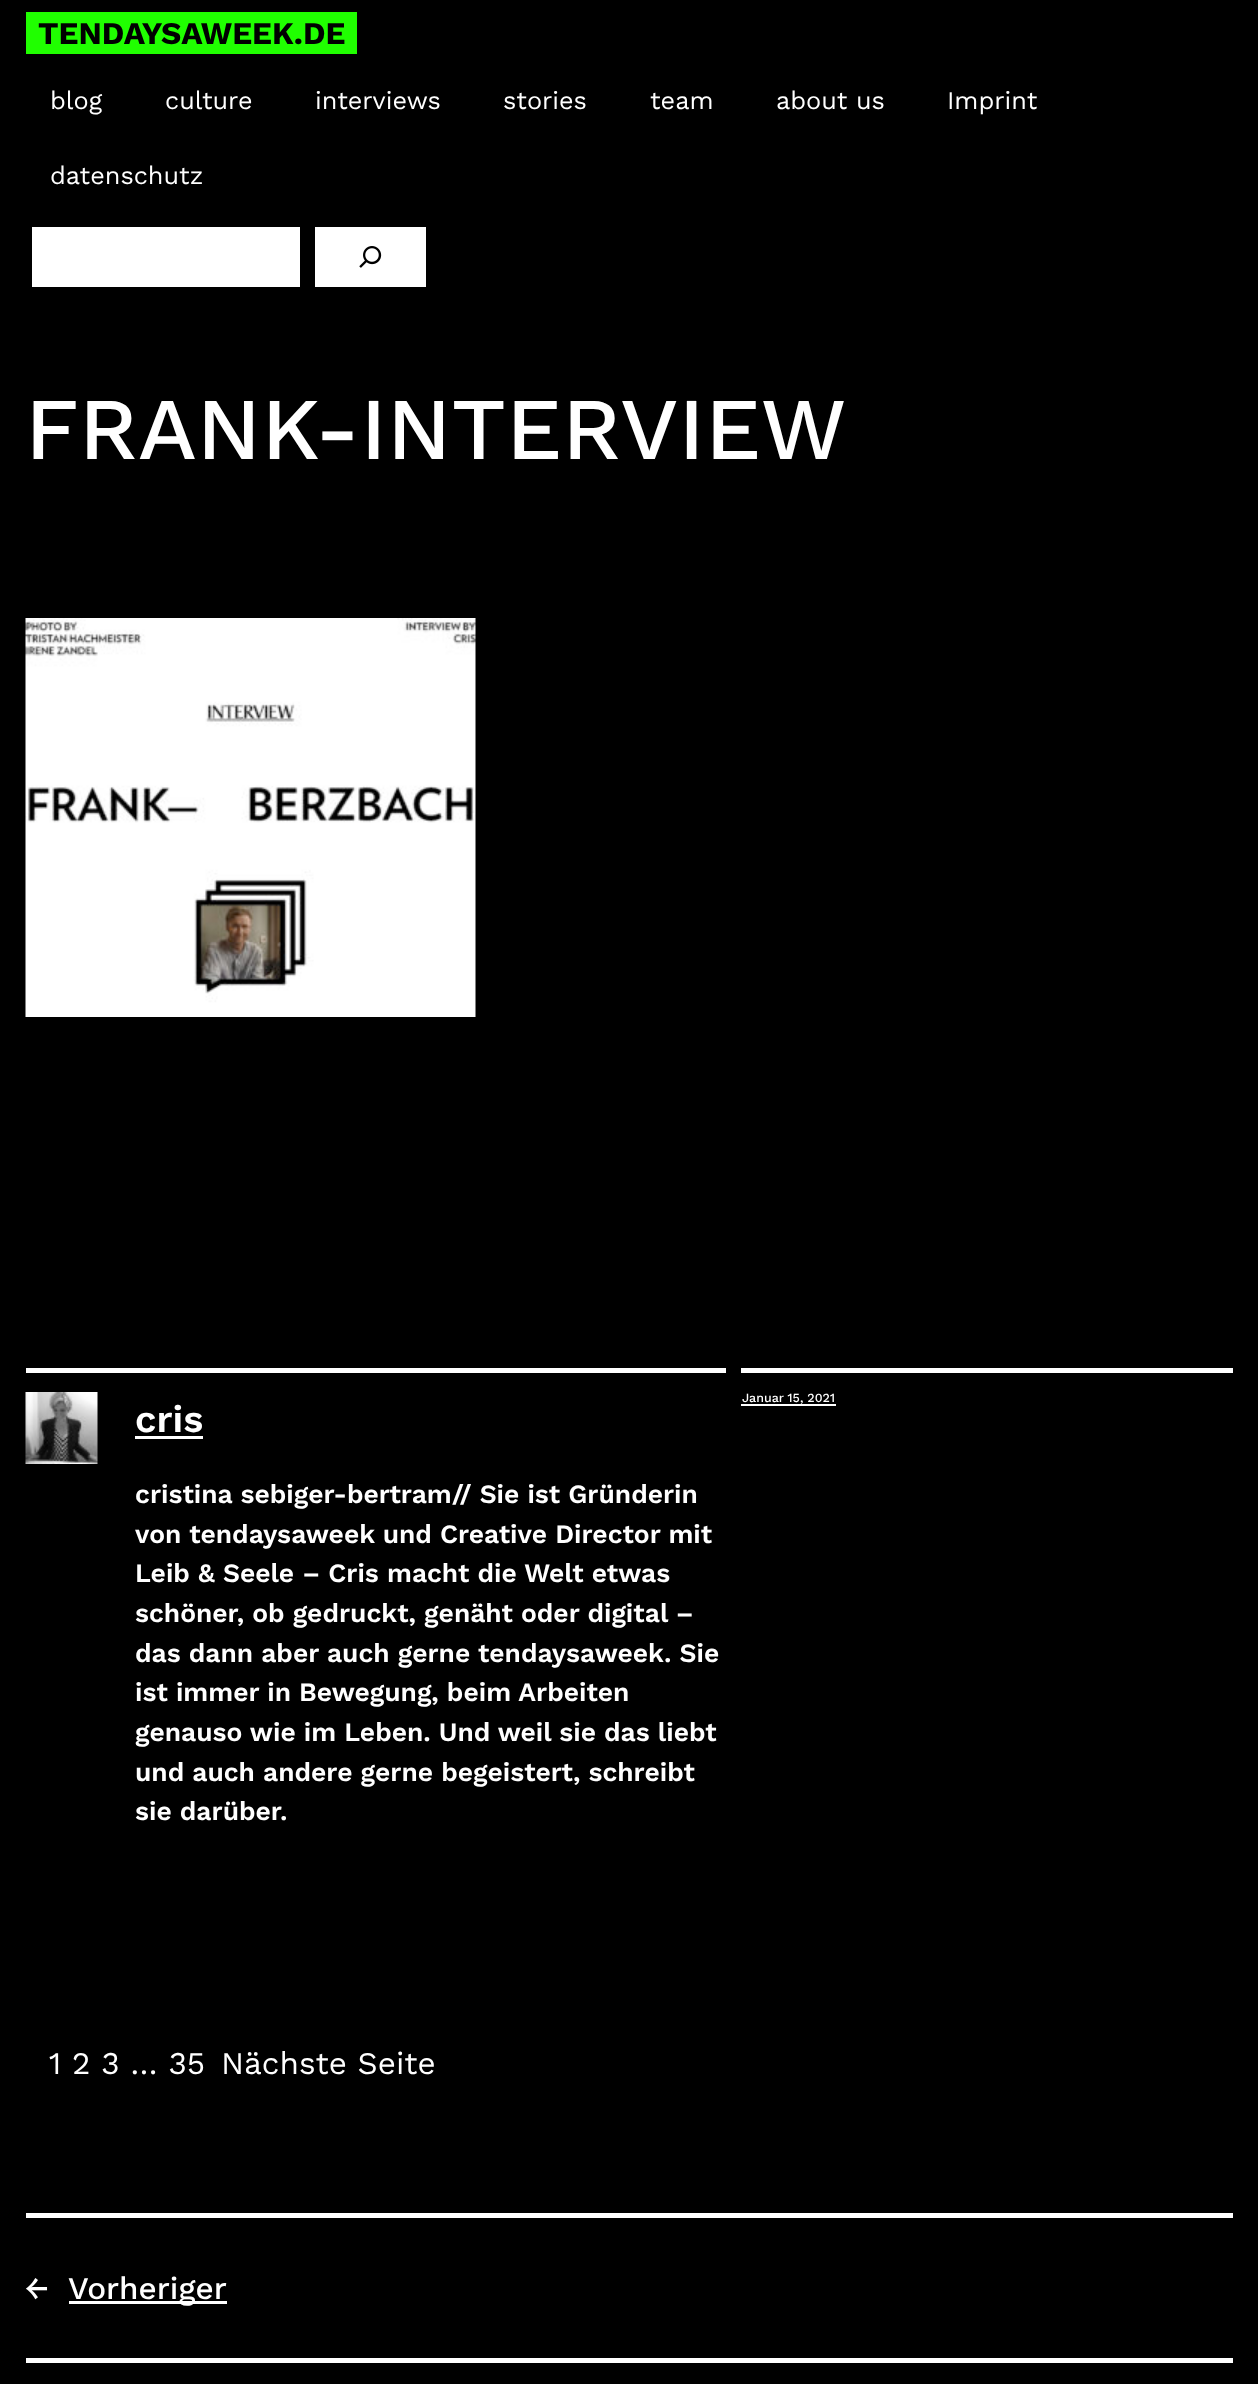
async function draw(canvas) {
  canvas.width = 1258;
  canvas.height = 2384;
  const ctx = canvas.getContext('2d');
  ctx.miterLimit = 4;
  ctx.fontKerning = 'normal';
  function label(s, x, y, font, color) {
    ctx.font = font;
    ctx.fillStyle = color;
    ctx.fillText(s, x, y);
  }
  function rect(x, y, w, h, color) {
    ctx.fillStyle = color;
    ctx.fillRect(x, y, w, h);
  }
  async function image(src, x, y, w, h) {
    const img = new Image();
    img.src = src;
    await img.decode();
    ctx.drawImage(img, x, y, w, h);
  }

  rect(0, 0, 1258, 2384, '#000');
  rect(26, 12, 331, 42, '#20ff00');
  label('TENDAYSAWEEK.DE', 38, 44, 'bold 31.5px Work Sans', '#000');
  label('blog', 50, 109, '25.25px Work Sans', '#fff');
  label('culture', 165, 109, '25.25px Work Sans', '#fff');
  label('interviews', 315, 109, '25.25px Work Sans', '#fff');
  label('stories', 503, 109, '25.25px Work Sans', '#fff');
  label('team', 650, 109, '25.25px Work Sans', '#fff');
  label('about us', 776, 109, '25.25px Work Sans', '#fff');
  label('Imprint', 947, 109, '25.25px Work Sans', '#fff');
  label('datenschutz', 50, 184, '25.25px Work Sans', '#fff');
  rect(32, 227, 268, 60, '#fff');
  rect(315, 227, 111, 60, '#fff');
  await image('assets/img1.png', 359, 246, 23, 22);
  label('FRANK-INTERVIEW', 25, 459, '500 88px Work Sans', '#fff');
  await image('assets/img2.png', 25, 618, 451, 399);
  rect(741, 1368, 492, 5, '#fff');
  label('Januar 15, 2021', 742, 1402, '500 12.5px Work Sans', '#fff');
  rect(741, 1404, 95, 2, '#fff');
  rect(26, 1368, 700, 5, '#fff');
  await image('assets/img3.png', 25, 1392, 73, 72);
  label('cris', 135, 1432, '600 38px Work Sans', '#fff');
  rect(135, 1436, 68, 3, '#fff');
  label('cristina sebiger-bertram// Sie ist Gründerin', 135, 1503, '600 26.4px Work Sans', '#fff');
  label('von tendaysaweek und Creative Director mit', 135, 1543, '600 26.4px Work Sans', '#fff');
  label('Leib & Seele – Cris macht die Welt etwas', 135, 1582, '600 26.4px Work Sans', '#fff');
  label('schöner, ob gedruckt, genäht oder digital –', 135, 1622, '600 26.4px Work Sans', '#fff');
  label('das dann aber auch gerne tendaysaweek. Sie', 135, 1662, '600 26.4px Work Sans', '#fff');
  label('ist immer in Bewegung, beim Arbeiten', 135, 1701, '600 26.4px Work Sans', '#fff');
  label('genauso wie im Leben. Und weil sie das liebt', 135, 1741, '600 26.4px Work Sans', '#fff');
  label('und auch andere gerne begeistert, schreibt', 135, 1781, '600 26.4px Work Sans', '#fff');
  label('sie darüber.', 135, 1820, '600 26.4px Work Sans', '#fff');
  label('1 2 3 … 35', 49, 2074, '31.5px Work Sans', '#fff');
  label('Nächste Seite', 221, 2074, '31.5px Work Sans', '#fff');
  rect(26, 2213, 1207, 5, '#fff');
  label('←', 25, 2299, '500 31.5px Work Sans', '#fff');
  rect(69, 2301, 158, 3, '#fff');
  label('Vorheriger', 68, 2299, '500 31.5px Work Sans', '#fff');
  rect(26, 2358, 1207, 5, '#fff');
}

draw(document.querySelector('canvas'));
